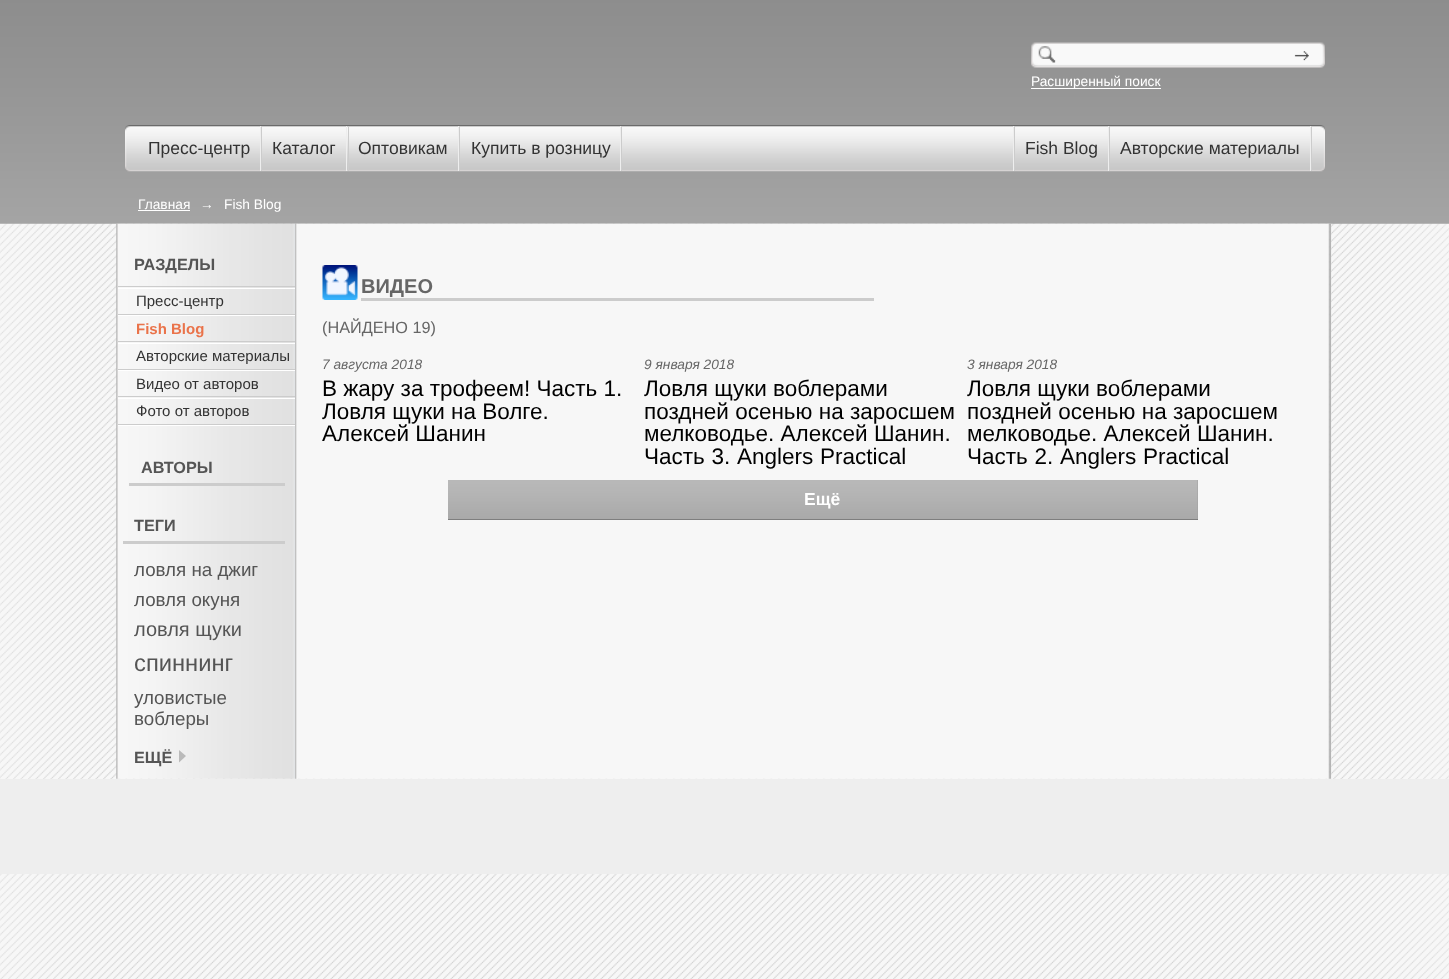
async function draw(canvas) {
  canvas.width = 1449;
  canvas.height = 979;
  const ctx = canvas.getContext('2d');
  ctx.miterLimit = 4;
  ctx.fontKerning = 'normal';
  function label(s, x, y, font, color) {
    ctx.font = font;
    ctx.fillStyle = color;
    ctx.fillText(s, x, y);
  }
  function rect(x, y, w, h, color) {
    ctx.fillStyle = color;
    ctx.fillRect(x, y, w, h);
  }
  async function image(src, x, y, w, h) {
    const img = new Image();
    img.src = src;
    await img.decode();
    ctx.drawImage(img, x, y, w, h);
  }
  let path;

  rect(0, 0, 1449, 979, '#fff');
  await image('assets/img1.png', 0, 223, 1449, 756);
  await image('assets/img2.png', 0, 0, 1449, 224);
  await image('assets/img3.png', 1031, 42, 294, 26);
  rect(1031, 88, 130, 1, '#fff');
  label('Расширенный поиск', 1031, 86, '13.75px Liberation Sans', '#fff');
  await image('assets/img4.png', 125, 125, 1200, 47);
  label('Пресс-центр', 148, 154, '17.5px Liberation Sans', '#333');
  rect(261, 126, 1, 45, '#ccc');
  rect(260, 126, 1, 45, '#eee');
  label('Каталог', 272, 154, '17.5px Liberation Sans', '#333');
  rect(348, 126, 1, 45, '#ccc');
  rect(346, 126, 1, 45, '#eee');
  label('Оптовикам', 358, 154, '17.5px Liberation Sans', '#333');
  rect(459, 126, 1, 45, '#ccc');
  rect(458, 126, 1, 45, '#eee');
  label('Купить в розницу', 471, 154, '17.5px Liberation Sans', '#333');
  rect(621, 126, 1, 45, '#ccc');
  rect(620, 126, 1, 45, '#eee');
  rect(1014, 126, 1, 45, '#ccc');
  rect(1013, 126, 1, 45, '#eee');
  label('Fish Blog', 1025, 154, '17.5px Liberation Sans', '#333');
  rect(1109, 126, 1, 45, '#ccc');
  rect(1108, 126, 1, 45, '#eee');
  label('Авторские материалы', 1120, 154, '17.5px Liberation Sans', '#333');
  rect(1311, 126, 1, 45, '#ccc');
  rect(1310, 126, 1, 45, '#eee');
  label('Главная', 138, 209, '13.75px Liberation Sans', '#fff');
  rect(138, 210, 52, 1, '#fff');
  label('→', 200, 209, '13.75px Liberation Sans', '#fff');
  label('Fish Blog', 224, 209, '13.75px Liberation Sans', '#fff');
  await image('assets/img5.png', 116, 223, 1216, 556);
  label('РАЗДЕЛЫ', 134, 270, 'bold 16.25px Liberation Sans', '#555');
  rect(118, 286, 177, 1, '#ccc');
  rect(118, 288, 177, 1, '#fff');
  rect(118, 314, 177, 1, '#ccc');
  label('Пресс-центр', 136, 306, '15px Liberation Sans', '#333');
  rect(118, 315, 177, 1, '#fff');
  rect(118, 341, 177, 1, '#ccc');
  label('Fish Blog', 136, 334, 'bold 15px Liberation Sans', '#ea734a');
  rect(118, 343, 177, 1, '#fff');
  rect(118, 369, 177, 1, '#ccc');
  label('Авторские материалы', 136, 361, '15px Liberation Sans', '#333');
  rect(118, 370, 177, 1, '#fff');
  rect(118, 396, 177, 1, '#ccc');
  label('Видео от авторов', 136, 389, '15px Liberation Sans', '#333');
  rect(118, 398, 177, 1, '#fff');
  rect(118, 424, 177, 1, '#ccc');
  label('Фото от авторов', 136, 416, '15px Liberation Sans', '#333');
  rect(118, 425, 177, 1, '#fff');
  rect(129, 483, 156, 3, '#ccc');
  label('АВТОРЫ', 141, 473, 'bold 16.25px Liberation Sans', '#555');
  rect(123, 541, 162, 3, '#ccc');
  label('ТЕГИ', 134, 531, 'bold 16.25px Liberation Sans', '#555');
  label('ловля на джиг', 134, 576, '18.75px Liberation Sans', '#555');
  label('ловля окуня', 134, 606, '18.75px Liberation Sans', '#555');
  label('ловля щуки', 134, 636, '20px Liberation Sans', '#555');
  label('спиннинг', 134, 671, '23.75px Liberation Sans', '#555');
  label('уловистые', 134, 704, '18.75px Liberation Sans', '#555');
  label('воблеры', 134, 725, '18.75px Liberation Sans', '#555');
  label('ЕЩЁ', 134, 763, 'bold 16.25px Liberation Sans', '#555');
  ctx.fillStyle = '#bababa';
  path = new Path2D('M179 762.5V750L186 756Z');
  ctx.fill(path);
  await image('assets/img6.png', 322, 265, 36, 35);
  rect(361, 298, 513, 3, '#ccc');
  label('ВИДЕО', 361, 293, 'bold 20px Liberation Sans', '#666');
  label('(НАЙДЕНО 19)', 322, 333, '16.25px Liberation Sans', '#666');
  label('7 августа 2018', 322, 369, 'italic 13.75px Liberation Sans', '#666');
  label('В жару за трофеем! Часть 1.', 322, 396, '22.5px Liberation Sans', '#000');
  label('Ловля щуки на Волге.', 322, 419, '22.5px Liberation Sans', '#000');
  label('Алексей Шанин', 322, 441, '22.5px Liberation Sans', '#000');
  label('9 января 2018', 644, 369, 'italic 13.75px Liberation Sans', '#666');
  label('Ловля щуки воблерами', 644, 396, '22.5px Liberation Sans', '#000');
  label('поздней осенью на заросшем', 644, 419, '22.5px Liberation Sans', '#000');
  label('мелководье. Алексей Шанин.', 644, 441, '22.5px Liberation Sans', '#000');
  ctx.wordSpacing = '0.5px';
  label('Часть 3. Anglers Practical', 644, 464, '22.5px Liberation Sans', '#000');
  ctx.wordSpacing = '0px';
  label('3 января 2018', 967, 369, 'italic 13.75px Liberation Sans', '#666');
  label('Ловля щуки воблерами', 967, 396, '22.5px Liberation Sans', '#000');
  label('поздней осенью на заросшем', 967, 419, '22.5px Liberation Sans', '#000');
  label('мелководье. Алексей Шанин.', 967, 441, '22.5px Liberation Sans', '#000');
  ctx.wordSpacing = '0.5px';
  label('Часть 2. Anglers Practical', 967, 464, '22.5px Liberation Sans', '#000');
  rect(448, 480, 750, 40, '#a1a1a1');
  await image('assets/img7.png', 448, 480, 750, 40);
  rect(448, 519, 750, 1, '#00000040');
  ctx.wordSpacing = '0px';
  label('Ещё', 804, 505, 'bold 17.5px Liberation Sans', '#fff');
  rect(0, 779, 1449, 95, '#eee');
}

draw(document.querySelector('canvas'));
